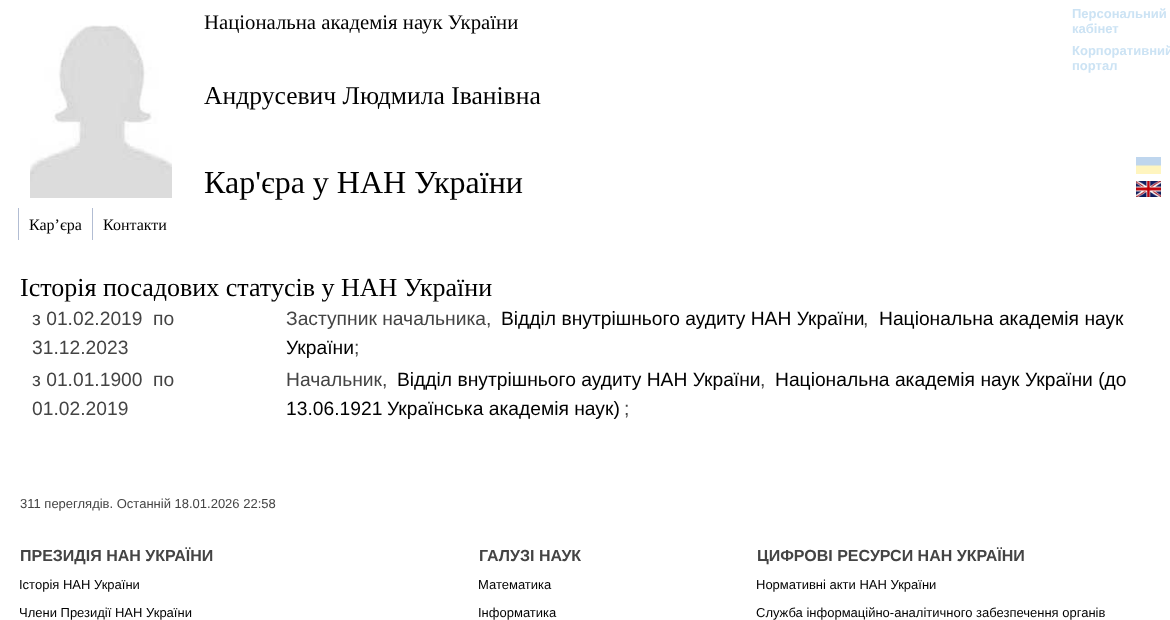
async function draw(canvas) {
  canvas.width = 1170;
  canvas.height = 620;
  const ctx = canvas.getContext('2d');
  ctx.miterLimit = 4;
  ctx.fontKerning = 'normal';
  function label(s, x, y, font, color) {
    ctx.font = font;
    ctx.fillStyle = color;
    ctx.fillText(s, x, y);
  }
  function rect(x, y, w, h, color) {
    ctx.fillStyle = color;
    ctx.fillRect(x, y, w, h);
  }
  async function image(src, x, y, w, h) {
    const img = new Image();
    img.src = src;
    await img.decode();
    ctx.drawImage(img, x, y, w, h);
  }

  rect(0, 0, 1170, 620, '#fff');
  await image('assets/img1.png', 30, 25, 142, 173);
  label('Національна академія наук України', 204, 29, '20.75px Liberation Serif', '#000');
  label('Персональний', 1072, 18, 'bold 13px Liberation Sans', '#cce3f4');
  label('кабінет', 1072, 33, 'bold 13px Liberation Sans', '#cce3f4');
  label('Корпоративний', 1072, 55, 'bold 13px Liberation Sans', '#cce3f4');
  label('портал', 1072, 70, 'bold 13px Liberation Sans', '#cce3f4');
  label('Андрусевич Людмила Іванівна', 204, 104, '25.6px Liberation Serif', '#000');
  await image('assets/img2.png', 1136, 157, 25, 17);
  await image('assets/img3.png', 1136, 181, 25, 16);
  label('Кар\'єра у НАН України', 204, 193, '32px Liberation Serif', '#000');
  rect(18, 208, 1, 32, '#b2bdd3');
  label('Кар’єра', 29, 230, '16px Liberation Serif', '#000');
  rect(92, 208, 1, 32, '#b2bdd3');
  label('Контакти', 103, 230, '16px Liberation Serif', '#000');
  label('Історія посадових статусів у НАН України', 20, 296, '26px Liberation Serif', '#000');
  label('з 01.02.2019', 32, 325, '19.25px Liberation Sans', '#444');
  label('по', 153, 325, '19.25px Liberation Sans', '#444');
  label('31.12.2023', 32, 354, '19.25px Liberation Sans', '#444');
  label('Заступник начальника,', 286, 325, '19.25px Liberation Sans', '#444');
  label('Відділ внутрішнього аудиту НАН України', 501, 325, '19.25px Liberation Sans', '#000');
  label(',', 863, 325, '19.25px Liberation Sans', '#444');
  label('Національна академія наук', 879, 325, '19.25px Liberation Sans', '#000');
  label('України', 286, 354, '19.25px Liberation Sans', '#000');
  label(';', 354, 354, '19.25px Liberation Sans', '#444');
  label('з 01.01.1900', 32, 386, '19.25px Liberation Sans', '#444');
  label('по', 153, 386, '19.25px Liberation Sans', '#444');
  label('01.02.2019', 32, 415, '19.25px Liberation Sans', '#444');
  label('Начальник,', 286, 386, '19.25px Liberation Sans', '#444');
  label('Відділ внутрішнього аудиту НАН України', 397, 386, '19.25px Liberation Sans', '#000');
  label(',', 760, 386, '19.25px Liberation Sans', '#444');
  label('Національна академія наук України (до', 775, 386, '19.25px Liberation Sans', '#000');
  label('13.06.1921', 286, 415, '19.25px Liberation Sans', '#000');
  label('Українська академія наук)', 387, 415, '19.25px Liberation Sans', '#000');
  label(';', 624, 415, '19.25px Liberation Sans', '#444');
  label('311 переглядів. Останній 18.01.2026 22:58', 20, 508, '13px Liberation Sans', '#444');
  label('ПРЕЗИДІЯ НАН УКРАЇНИ', 20, 561, 'bold 16px Liberation Sans', '#444');
  label('Історія НАН України', 19, 589, '13px Liberation Sans', '#000');
  label('Члени Президії НАН України', 19, 617, '13px Liberation Sans', '#000');
  label('ГАЛУЗІ НАУК', 479, 561, 'bold 16px Liberation Sans', '#444');
  label('Математика', 478, 589, '13px Liberation Sans', '#000');
  label('Інформатика', 478, 617, '13px Liberation Sans', '#000');
  label('ЦИФРОВІ РЕСУРСИ НАН УКРАЇНИ', 757, 561, 'bold 16px Liberation Sans', '#444');
  label('Нормативні акти НАН України', 756, 589, '13px Liberation Sans', '#000');
  label('Служба інформаційно-аналітичного забезпечення органів', 756, 617, '13px Liberation Sans', '#000');
}

draw(document.querySelector('canvas'));
